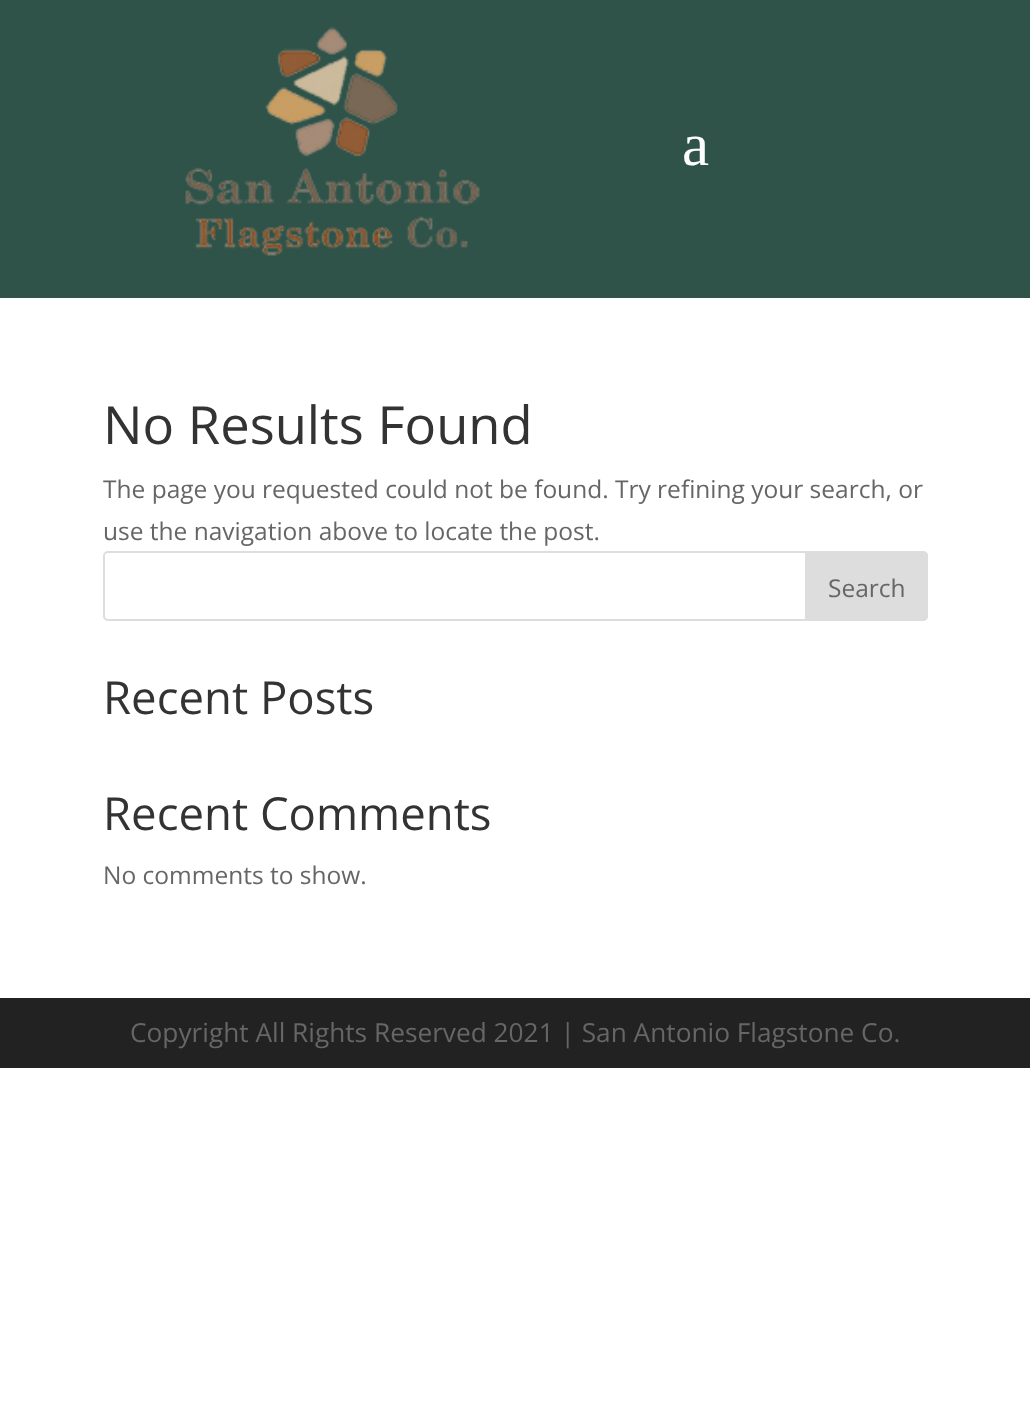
async function draw(canvas) {
  canvas.width = 1030;
  canvas.height = 1423;
  const ctx = canvas.getContext('2d');
  ctx.miterLimit = 4;
  ctx.fontKerning = 'normal';
  function label(s, x, y, font, color) {
    ctx.font = font;
    ctx.fillStyle = color;
    ctx.fillText(s, x, y);
  }
  function rect(x, y, w, h, color) {
    ctx.fillStyle = color;
    ctx.fillRect(x, y, w, h);
  }
  async function image(src, x, y, w, h) {
    const img = new Image();
    img.src = src;
    await img.decode();
    ctx.drawImage(img, x, y, w, h);
  }

  rect(0, 0, 1030, 1423, '#fff');
  rect(0, 0, 1030, 298, '#2f5349');
  await image('assets/img1.png', 185, 26, 295, 230);
  label('a', 682, 165, '61px Liberation Serif', '#fff');
  label('No Results Found', 103, 444, '52.5px Open Sans', '#333');
  label('The page you requested could not be found. Try refining your search, or', 103, 498, '24.5px Open Sans', '#666');
  label('use the navigation above to locate the post.', 103, 540, '24.5px Open Sans', '#666');
  ctx.beginPath();
  ctx.roundRect(104, 552, 823, 68, 4);
  ctx.strokeStyle = '#ddd';
  ctx.lineWidth = 2;
  ctx.stroke();
  ctx.fillStyle = '#ddd';
  ctx.beginPath();
  ctx.roundRect(806, 552, 121, 68, [0, 4, 4, 0]);
  ctx.fill();
  ctx.stroke();
  label('Search', 828, 597, '24.5px Open Sans', '#666');
  label('Recent Posts', 103, 714, '45.5px Open Sans', '#333');
  label('Recent Comments', 103, 830, '45.5px Open Sans', '#333');
  label('No comments to show.', 103, 884, '24.5px Open Sans', '#666');
  rect(0, 998, 1030, 70, '#222');
  label('Copyright All Rights Reserved 2021 | San Antonio Flagstone Co.', 130, 1042, '26.25px Open Sans', '#666');
}

draw(document.querySelector('canvas'));
